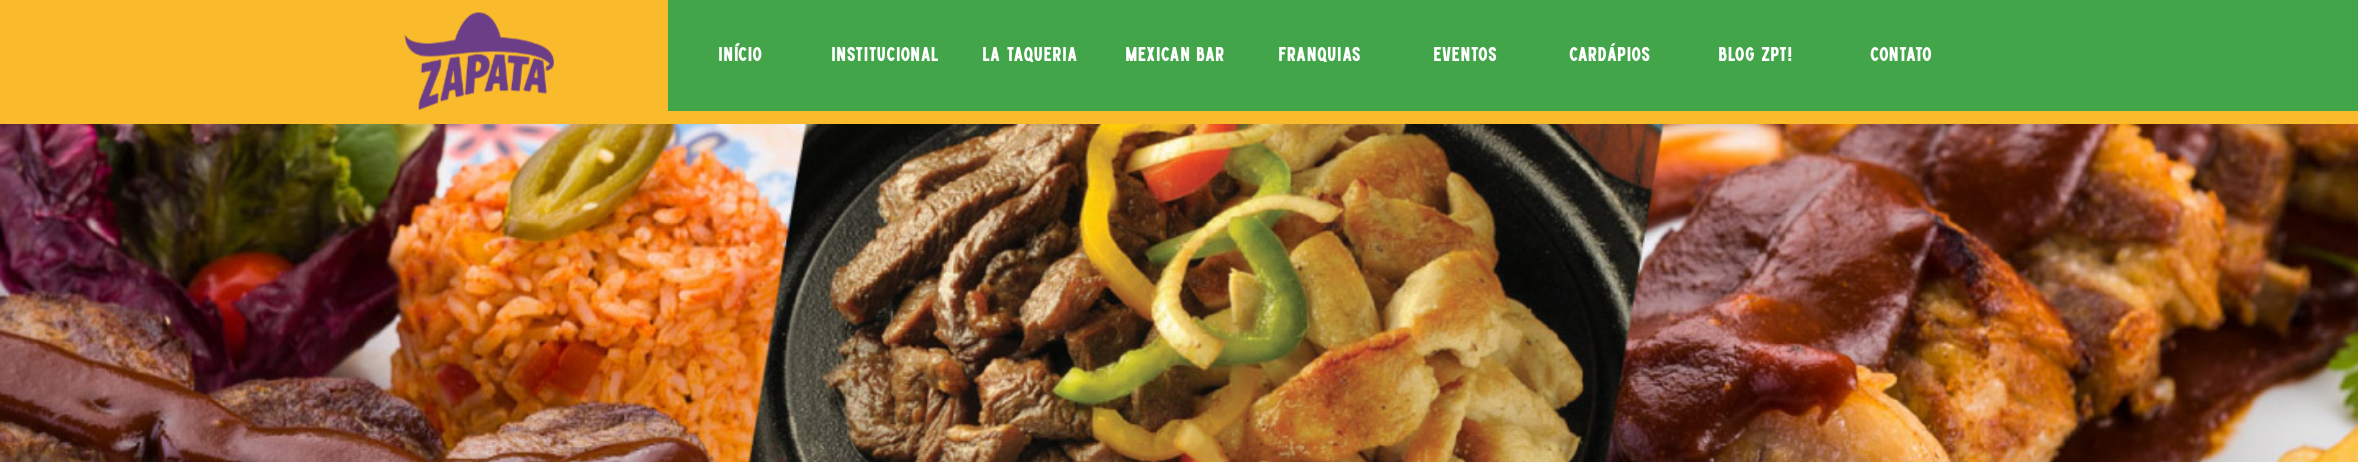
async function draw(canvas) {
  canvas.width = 2358;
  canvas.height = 462;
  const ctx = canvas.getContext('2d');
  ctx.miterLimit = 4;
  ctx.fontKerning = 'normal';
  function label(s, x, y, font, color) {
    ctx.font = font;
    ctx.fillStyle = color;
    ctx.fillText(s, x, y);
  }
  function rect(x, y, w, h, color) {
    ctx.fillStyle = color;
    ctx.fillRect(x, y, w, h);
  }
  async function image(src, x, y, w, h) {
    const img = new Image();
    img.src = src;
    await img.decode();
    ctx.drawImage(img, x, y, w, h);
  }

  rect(0, 0, 2358, 462, '#fff');
  rect(0, 0, 2358, 124, '#f9bb2c');
  rect(668, 0, 1690, 111, '#43a549');
  await image('assets/img1.png', 404, 12, 150, 98);
  label('início', 718, 61, '20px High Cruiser', '#fff');
  label('institucional', 831, 61, '20px High Cruiser', '#fff');
  label('la taqueria', 982, 61, '20px High Cruiser', '#fff');
  label('mexican bar', 1125, 61, '20px High Cruiser', '#fff');
  label('franquias', 1278, 61, '20px High Cruiser', '#fff');
  label('eventos', 1433, 61, '20px High Cruiser', '#fff');
  label('cardápios', 1569, 61, '20px High Cruiser', '#fff');
  label('blog zpt!', 1718, 61, '20px High Cruiser', '#fff');
  label('contato', 1870, 61, '20px High Cruiser', '#fff');
  await image('assets/img2.png', 0, 124, 2358, 338);
}

draw(document.querySelector('canvas'));
